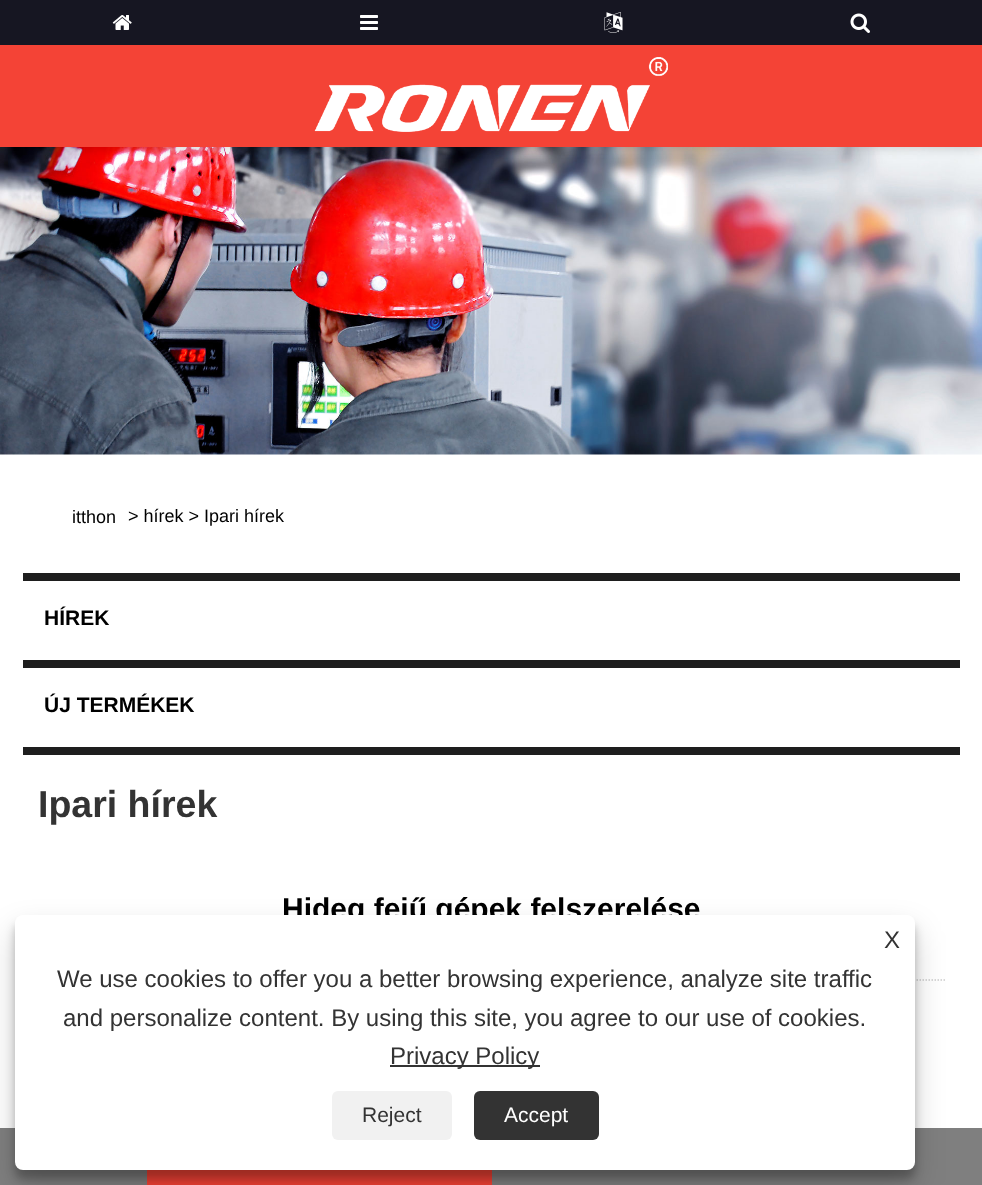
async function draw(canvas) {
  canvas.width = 982;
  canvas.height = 1185;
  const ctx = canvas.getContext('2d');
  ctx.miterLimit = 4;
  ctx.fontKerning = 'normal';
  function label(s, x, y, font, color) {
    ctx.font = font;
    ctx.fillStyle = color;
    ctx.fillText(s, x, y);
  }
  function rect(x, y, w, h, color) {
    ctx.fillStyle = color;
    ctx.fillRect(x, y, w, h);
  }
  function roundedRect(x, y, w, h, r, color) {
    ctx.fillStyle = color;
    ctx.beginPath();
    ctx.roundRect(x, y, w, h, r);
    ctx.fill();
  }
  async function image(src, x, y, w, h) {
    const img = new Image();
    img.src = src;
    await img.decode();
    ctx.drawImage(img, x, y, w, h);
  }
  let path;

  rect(0, 0, 982, 1185, '#fff');
  await image('assets/img6.png', 0, 147, 982, 308);
  ctx.fillStyle = '#00000033';
  ctx.filter = 'blur(6px)';
  ctx.beginPath();
  ctx.rect(0, 0, 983, 147);
  ctx.fill();
  ctx.filter = 'none';
  rect(0, 45, 982, 102, '#f44336');
  rect(0, 0, 982, 45, '#161622');
  await image('assets/img1.png', 112, 15, 20, 15);
  await image('assets/img2.png', 360, 15, 18, 15);
  await image('assets/img3.png', 604, 12, 19, 21);
  await image('assets/img4.png', 850, 13, 20, 20);
  await image('assets/img5.png', 314, 57, 354, 75);
  label('itthon', 72, 523, '18px Liberation Sans', '#000');
  label('> hírek > Ipari hírek', 128, 522, '18px Liberation Sans', '#000');
  rect(23, 573, 937, 8, '#1e1e1e');
  label('HÍREK', 44, 625, 'bold 21px Liberation Sans', '#000');
  rect(23, 660, 937, 8, '#1e1e1e');
  label('ÚJ TERMÉKEK', 44, 712, 'bold 21px Liberation Sans', '#000');
  rect(23, 747, 937, 8, '#1e1e1e');
  label('Ipari hírek', 38, 817, 'bold 37.5px Liberation Sans', '#333');
  path = new Path2D('M37.5 980H945');
  ctx.strokeStyle = '#ccc';
  ctx.lineWidth = 1.5;
  ctx.setLineDash([1.5, 1.5]);
  ctx.stroke(path);
  label('Hideg fejű gépek felszerelése', 282, 919, 'bold 30px Liberation Sans', '#000');
  rect(0, 1128, 982, 57, '#7f7f7f');
  rect(147, 1170, 345, 15, '#f44336');
  ctx.fillStyle = '#0000003b';
  ctx.filter = 'blur(4.5px)';
  ctx.beginPath();
  ctx.roundRect(15, 924, 900, 255, 8);
  ctx.fill();
  ctx.filter = 'none';
  ctx.fillStyle = '#00000030';
  ctx.filter = 'blur(15px)';
  ctx.beginPath();
  ctx.roundRect(15, 930, 900, 255, 8);
  ctx.fill();
  ctx.filter = 'none';
  roundedRect(15, 915, 900, 255, 8, '#fff');
  label('X', 884, 948, '24px Liberation Sans', '#333');
  label('We use cookies to offer you a better browsing experience, analyze site traffic', 57, 987, '24px Liberation Sans', '#333');
  label('and personalize content. By using this site, you agree to our use of cookies.', 63, 1026, '24px Liberation Sans', '#333');
  rect(390, 1065, 150, 2, '#333');
  label('Privacy Policy', 390, 1064, '24px Liberation Sans', '#333');
  roundedRect(332, 1091, 120, 49, 6, '#f1f1f1');
  label('Reject', 362, 1122, '21px Liberation Sans', '#333');
  roundedRect(474, 1091, 125, 49, 6, '#333');
  label('Accept', 504, 1122, '21px Liberation Sans', '#fff');
}

draw(document.querySelector('canvas'));
